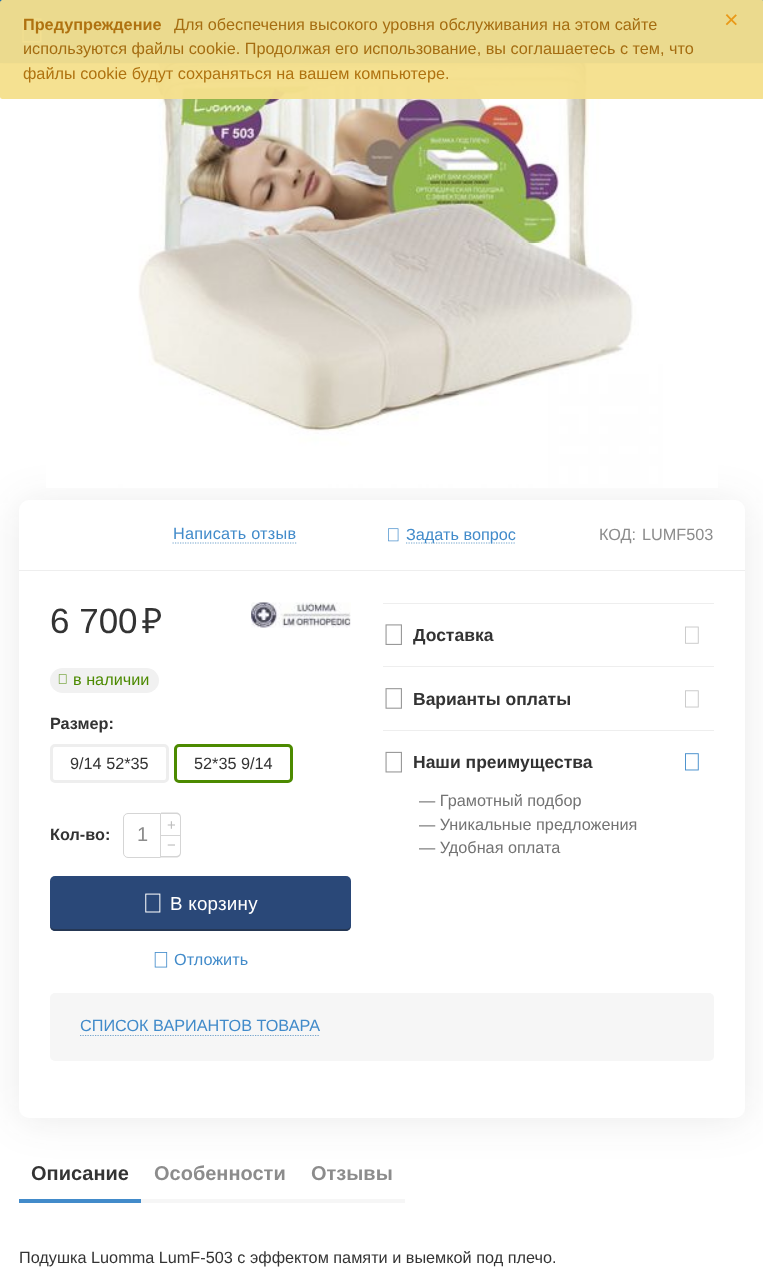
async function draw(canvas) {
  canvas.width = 763;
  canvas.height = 1287;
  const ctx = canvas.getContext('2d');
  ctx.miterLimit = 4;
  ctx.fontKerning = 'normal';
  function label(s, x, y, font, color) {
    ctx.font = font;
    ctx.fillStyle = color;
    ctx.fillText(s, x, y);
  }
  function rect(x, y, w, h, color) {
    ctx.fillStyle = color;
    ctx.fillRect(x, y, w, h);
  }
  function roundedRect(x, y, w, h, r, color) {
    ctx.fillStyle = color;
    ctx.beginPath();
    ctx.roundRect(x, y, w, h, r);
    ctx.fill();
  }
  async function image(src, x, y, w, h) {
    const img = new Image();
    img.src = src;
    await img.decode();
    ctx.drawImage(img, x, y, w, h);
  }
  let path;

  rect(0, 0, 763, 1287, '#fff');
  ctx.fillStyle = '#3333331a';
  ctx.filter = 'blur(20px)';
  ctx.beginPath();
  ctx.roundRect(19, 503, 726, 617, 10);
  ctx.fill();
  ctx.filter = 'none';
  await image('assets/img1.png', 46, 63, 672, 425);
  ctx.fillStyle = '#0000001a';
  ctx.filter = 'blur(2px)';
  ctx.beginPath();
  ctx.rect(0, 4, 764, 62);
  ctx.fill();
  ctx.filter = 'none';
  ctx.filter = 'blur(0.5px)';
  ctx.beginPath();
  ctx.rect(0, 1, 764, 63);
  ctx.fill();
  ctx.filter = 'none';
  rect(0, 0, 763, 63, '#005dab');
  ctx.fillStyle = '#c7ccd7';
  path = new Path2D('M22.5 18.5H41.5V42.5H22.5ZM23.5 19.5V41H40V19.5Z');
  ctx.fill(path);
  roundedRect(0, 0, 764, 99, 2.5, '#f5e08cf5');
  label('Предупреждение', 23, 30, 'bold 16.25px Liberation Sans', '#af7210');
  label('Для обеспечения высокого уровня обслуживания на этом сайте', 174, 30, '16.25px Liberation Sans', '#a56d11');
  label('×', 724, 28, '25px Liberation Sans', '#e99918');
  label('используются файлы cookie. Продолжая его использование, вы соглашаетесь с тем, что', 23, 54, '16.25px Liberation Sans', '#a56d11');
  label('файлы cookie будут сохраняться на вашем компьютере.', 23, 79, '16.25px Liberation Sans', '#af7210');
  roundedRect(19, 500, 726, 618, 10, '#fff');
  rect(19, 570, 726, 1, '#eee');
  path = new Path2D('M172.5 543H297.5');
  ctx.strokeStyle = '#73a3cc';
  ctx.lineWidth = 1.2;
  ctx.setLineDash([1.25, 1.25]);
  ctx.stroke(path);
  ctx.letterSpacing = '0.25px';
  label('Написать отзыв', 173, 539, '16.25px Liberation Sans', '#428bca');
  await image('assets/img2.png', 388, 528, 11, 14);
  path = new Path2D('M406 543H516');
  ctx.stroke(path);
  ctx.letterSpacing = '0px';
  label('Задать вопрос', 406, 540, '16.25px Liberation Sans', '#428bca');
  label('КОД:', 599, 540, '16.25px Liberation Sans', '#8c8c8c');
  label('LUMF503', 642, 540, '16.25px Liberation Sans', '#8c8c8c');
  label('6 700', 50, 633, '35px Liberation Sans', '#333');
  label('₽', 142, 633, '35px Noto Sans', '#333');
  await image('assets/img3.png', 251, 602, 100, 26);
  roundedRect(50, 668, 109, 25, 12.5, '#f1f1f1');
  await image('assets/img4.png', 58, 674, 9, 10);
  label('в наличии', 73, 685, '16.25px Liberation Sans', '#4c8a00');
  label('Размер:', 50, 729, 'bold 16.25px Liberation Sans', '#333');
  ctx.beginPath();
  ctx.roundRect(51.5, 745.5, 116, 36, 3.5);
  ctx.strokeStyle = '#eee';
  ctx.lineWidth = 3;
  ctx.setLineDash([]);
  ctx.stroke();
  label('9/14 52*35', 70, 769, '16.25px Liberation Sans', '#333');
  ctx.beginPath();
  ctx.roundRect(175.5, 745.5, 116, 36, 3.5);
  ctx.strokeStyle = '#4c8a00';
  ctx.stroke();
  label('52*35 9/14', 194, 769, '16.25px Liberation Sans', '#333');
  label('Кол-во:', 50, 840, 'bold 16.25px Liberation Sans', '#333');
  ctx.fillStyle = '#d5d5d5';
  path = new Path2D('M161 812.5H176C179 812.5 181 814.5 181 817.5V835H161ZM161 814H176C178.5 814 180 815.5 180 817.5V835H161Z');
  ctx.fill(path, 'evenodd');
  label('+', 167, 830, '15px Liberation Sans', '#bbb');
  ctx.beginPath();
  ctx.roundRect(123.5, 813.5, 37, 44, [4.5, 0, 0, 4.5]);
  ctx.strokeStyle = '#d5d5d5';
  ctx.lineWidth = 1;
  ctx.stroke();
  label('1', 137, 841, '20px Liberation Sans', '#8c8c8c');
  ctx.fillStyle = '#d5d5d5';
  path = new Path2D('M161 835H181V852.5C181 855.5 179 857.5 176 857.5H161ZM161 836H180V852.5C180 854.5 178.5 856 176 856H161Z');
  ctx.fill(path, 'evenodd');
  label('−', 167, 850, '15px Liberation Sans', '#bbb');
  roundedRect(50, 876, 301, 55, 5, '#2a4878');
  ctx.fillStyle = '#253754';
  path = new Path2D('M50 924C50 927 51 931 55 931H346C350 931 351 927 351 924C351 927 349 929 346 929H55C52 929 50 927 50 924Z');
  ctx.fill(path);
  await image('assets/img5.png', 145, 893, 16, 20);
  ctx.letterSpacing = '0.25px';
  label('В корзину', 170, 910, '18.75px Liberation Sans', '#fff');
  await image('assets/img6.png', 154, 952, 14, 16);
  ctx.letterSpacing = '0px';
  label('Отложить', 174, 965, '16.25px Liberation Sans', '#428bca');
  rect(383, 603, 331, 1, '#eee');
  await image('assets/img7.png', 385, 624, 17, 21);
  label('Доставка', 413, 641, 'bold 17.5px Liberation Sans', '#333');
  await image('assets/img8.png', 685, 626, 14, 18);
  rect(383, 666, 331, 1, '#eee');
  await image('assets/img9.png', 385, 688, 17, 21);
  label('Варианты оплаты', 413, 705, 'bold 17.5px Liberation Sans', '#333');
  await image('assets/img10.png', 685, 690, 14, 18);
  rect(383, 730, 331, 1, '#eee');
  await image('assets/img11.png', 385, 751, 17, 22);
  label('Наши преимущества', 413, 768, 'bold 17.5px Liberation Sans', '#333');
  await image('assets/img12.png', 685, 753, 14, 18);
  label('— Грамотный подбор', 419, 806, '16.25px Liberation Sans', '#737373');
  label('— Уникальные предложения', 419, 830, '16.25px Liberation Sans', '#737373');
  label('— Удобная оплата', 419, 853, '16.25px Liberation Sans', '#737373');
  roundedRect(50, 993, 664, 68, 5, '#f6f6f6');
  label('СПИСОК ВАРИАНТОВ ТОВАРА', 80, 1031, '16.25px Liberation Sans', '#428bca');
  path = new Path2D('M80 1035.5H320');
  ctx.strokeStyle = '#73a3cc';
  ctx.lineWidth = 1.2;
  ctx.setLineDash([1.25, 1.25]);
  ctx.stroke(path);
  rect(19, 1199, 122, 4, '#428bca');
  label('Описание', 31, 1180, 'bold 20px Liberation Sans', '#333');
  rect(141, 1199, 264, 4, '#f6f6f6');
  label('Особенности', 154, 1180, 'bold 20px Liberation Sans', '#8c8c8c');
  label('Отзывы', 311, 1180, 'bold 20px Liberation Sans', '#8c8c8c');
  label('Подушка Luomma LumF-503 с эффектом памяти и выемкой под плечо.', 19, 1263, '16.25px Liberation Sans', '#333');
}

draw(document.querySelector('canvas'));
